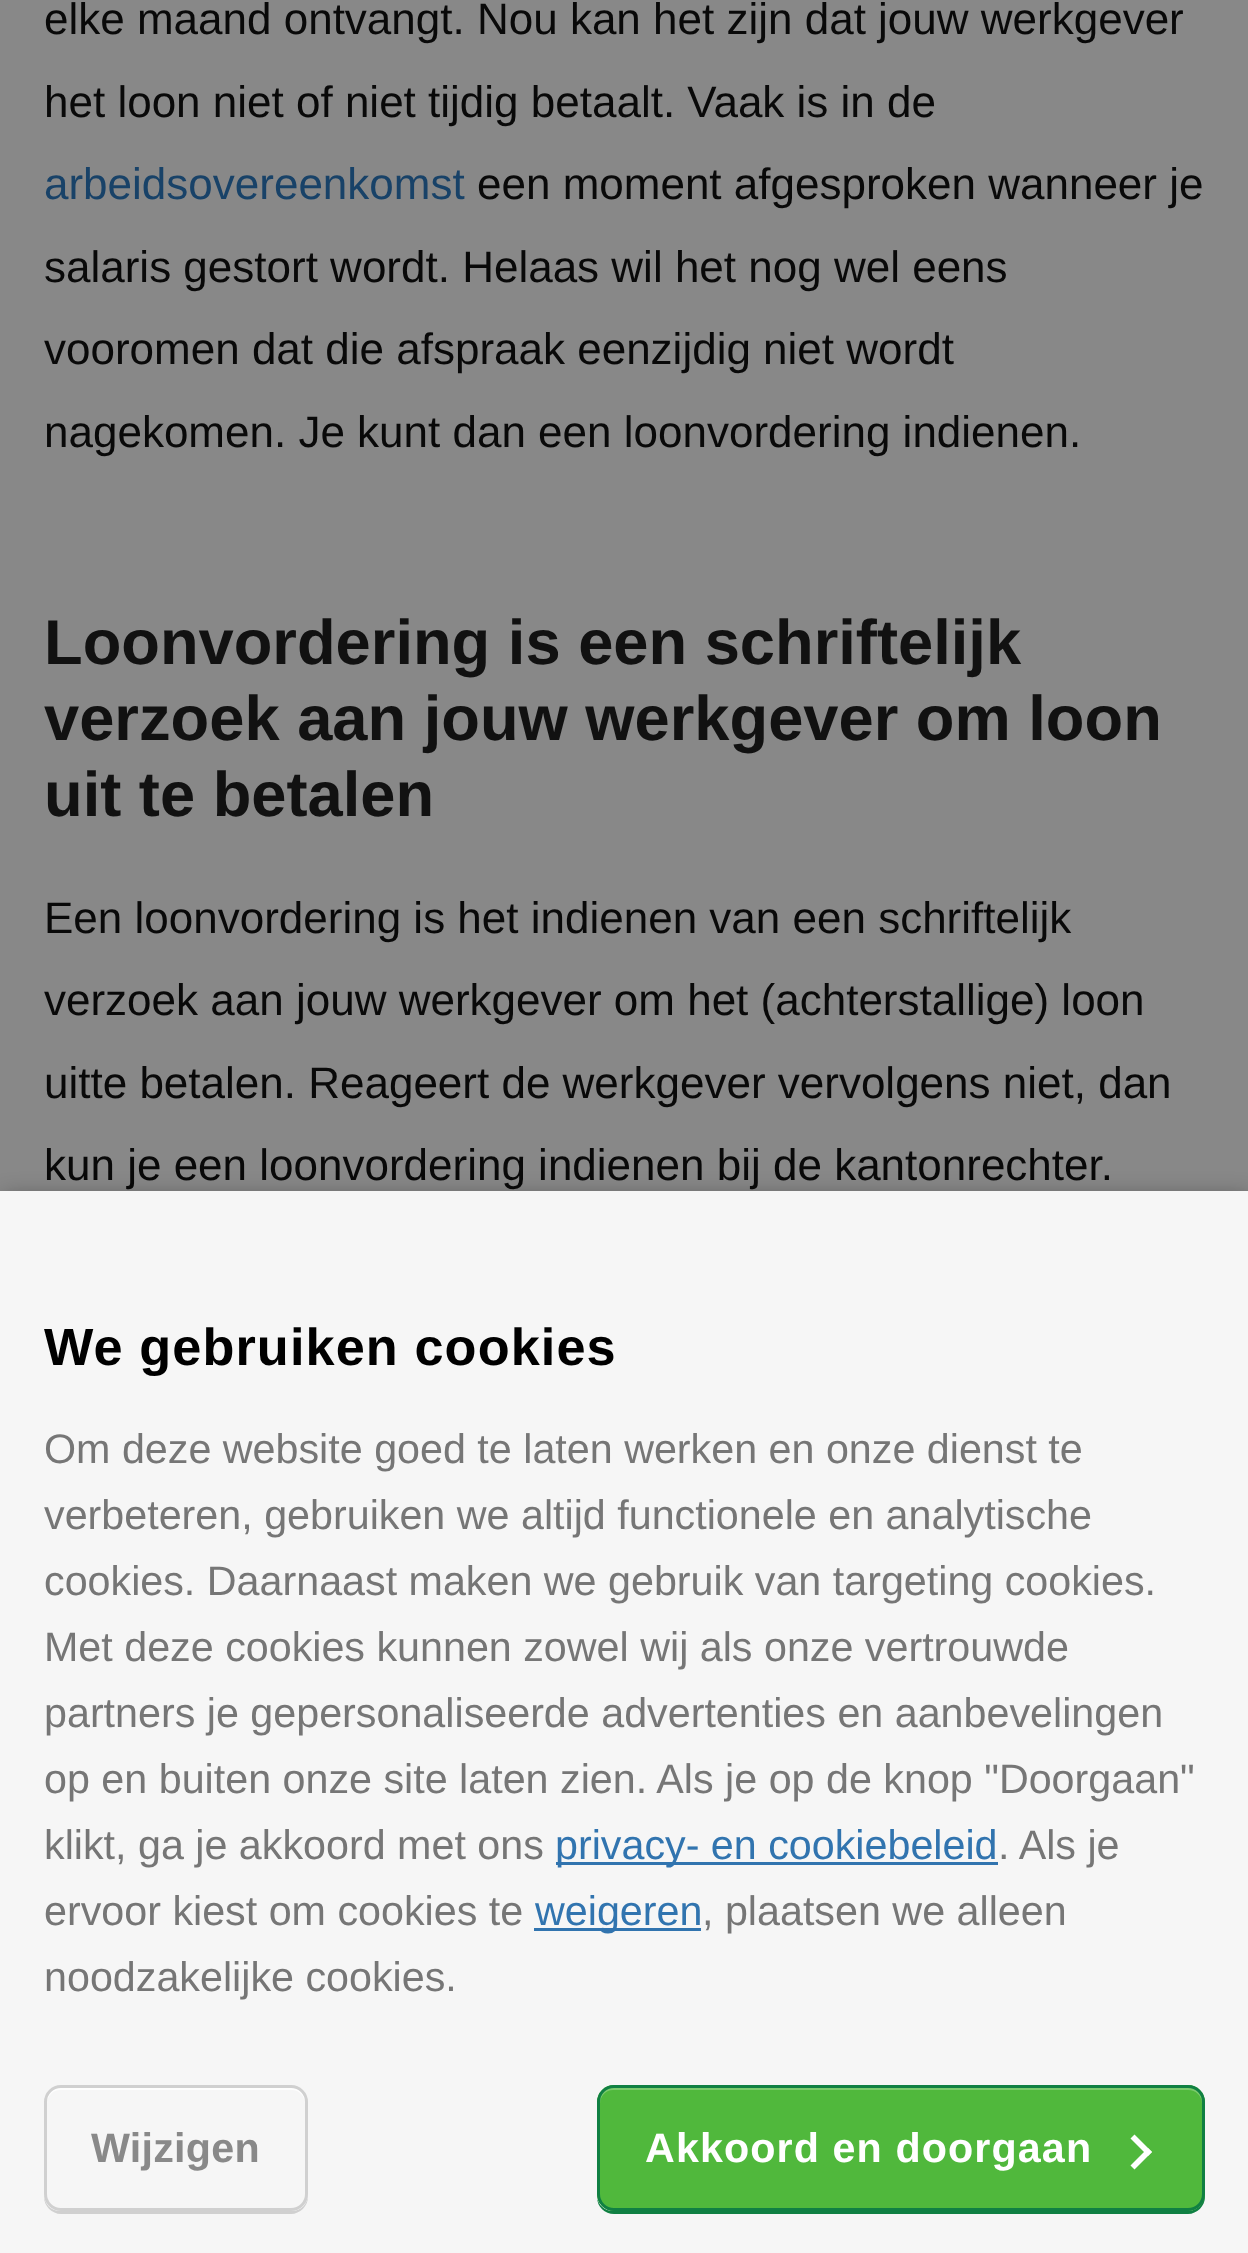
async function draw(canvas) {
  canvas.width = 1248;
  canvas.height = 2253;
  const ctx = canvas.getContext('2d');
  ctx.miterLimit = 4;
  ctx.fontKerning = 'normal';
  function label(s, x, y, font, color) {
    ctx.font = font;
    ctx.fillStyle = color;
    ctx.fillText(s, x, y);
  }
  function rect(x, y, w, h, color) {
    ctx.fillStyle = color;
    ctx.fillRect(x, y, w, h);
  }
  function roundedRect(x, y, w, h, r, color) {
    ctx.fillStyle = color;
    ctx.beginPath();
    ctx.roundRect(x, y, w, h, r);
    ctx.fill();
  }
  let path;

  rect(0, 0, 1248, 2253, '#888');
  label('elke maand ontvangt. Nou kan het zijn dat jouw werkgever', 44, 34, '44px Liberation Sans', '#090909');
  label('het loon niet of niet tijdig betaalt. Vaak is in de', 44, 117, '44px Liberation Sans', '#090909');
  label('arbeidsovereenkomst', 44, 199, '44px Liberation Sans', '#184268');
  label('een moment afgesproken wanneer je', 477, 199, '44px Liberation Sans', '#090909');
  label('salaris gestort wordt. Helaas wil het nog wel eens', 44, 282, '44px Liberation Sans', '#090909');
  label('vooromen dat die afspraak eenzijdig niet wordt', 44, 364, '44px Liberation Sans', '#090909');
  label('nagekomen. Je kunt dan een loonvordering indienen.', 44, 447, '44px Liberation Sans', '#090909');
  label('Loonvordering is een schriftelijk', 44, 664, 'bold 63.25px Liberation Sans', '#111');
  label('verzoek aan jouw werkgever om loon', 44, 740, 'bold 63.25px Liberation Sans', '#111');
  label('uit te betalen', 44, 816, 'bold 63.25px Liberation Sans', '#111');
  label('Een loonvordering is het indienen van een schriftelijk', 44, 933, '44px Liberation Sans', '#090909');
  label('verzoek aan jouw werkgever om het (achterstallige) loon', 44, 1015, '44px Liberation Sans', '#090909');
  label('uitte betalen. Reageert de werkgever vervolgens niet, dan', 44, 1098, '44px Liberation Sans', '#090909');
  label('kun je een loonvordering indienen bij de kantonrechter.', 44, 1180, '44px Liberation Sans', '#090909');
  ctx.fillStyle = '#00000059';
  ctx.filter = 'blur(11px)';
  ctx.beginPath();
  ctx.rect(3, 1196, 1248, 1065);
  ctx.fill();
  ctx.filter = 'none';
  rect(0, 1191, 1248, 1062, '#f6f6f6');
  ctx.letterSpacing = '1.1px';
  label('We gebruiken cookies', 44, 1365, 'bold 52.25px Liberation Sans', '#000');
  ctx.letterSpacing = '0px';
  label('Om deze website goed te laten werken en onze dienst te', 44, 1463, '41.25px Liberation Sans', '#767676');
  label('verbeteren, gebruiken we altijd functionele en analytische', 44, 1529, '41.25px Liberation Sans', '#767676');
  label('cookies. Daarnaast maken we gebruik van targeting cookies.', 44, 1595, '41.25px Liberation Sans', '#767676');
  label('Met deze cookies kunnen zowel wij als onze vertrouwde', 44, 1661, '41.25px Liberation Sans', '#767676');
  label('partners je gepersonaliseerde advertenties en aanbevelingen', 44, 1727, '41.25px Liberation Sans', '#767676');
  label('op en buiten onze site laten zien. Als je op de knop "Doorgaan"', 44, 1793, '41.25px Liberation Sans', '#767676');
  label('klikt, ga je akkoord met ons', 44, 1859, '41.25px Liberation Sans', '#767676');
  rect(556, 1862, 442, 3, '#3174af');
  label('privacy- en cookiebeleid', 555, 1859, '41.25px Liberation Sans', '#3174af');
  label('. Als je', 998, 1859, '41.25px Liberation Sans', '#767676');
  label('ervoor kiest om cookies te', 44, 1925, '41.25px Liberation Sans', '#767676');
  rect(534, 1928, 167, 3, '#3174af');
  label('weigeren', 535, 1925, '41.25px Liberation Sans', '#3174af');
  label(', plaatsen we alleen', 702, 1925, '41.25px Liberation Sans', '#767676');
  label('noodzakelijke cookies.', 44, 1991, '41.25px Liberation Sans', '#767676');
  ctx.fillStyle = '#d0d0d0';
  path = new Path2D('M44 2194V2197C44 2206 52 2214 61 2214H291C300 2214 308 2206 308 2197V2194C308 2204 301 2211 292 2211H60C51 2211 44 2204 44 2194Z');
  ctx.fill(path);
  ctx.fillStyle = '#fefefe';
  path = new Path2D('M60 2090H292C299 2090 305 2096 305 2104V2101C305 2093 299 2087 291 2087H61C53 2087 47 2093 47 2101V2104C47 2096 53 2090 60 2090Z');
  ctx.fill(path);
  ctx.beginPath();
  ctx.roundRect(45.5, 2086.5, 261, 123, 15.5);
  ctx.strokeStyle = '#d0d0d0';
  ctx.lineWidth = 3;
  ctx.stroke();
  ctx.letterSpacing = '0.25px';
  label('Wijzigen', 91, 2162, 'bold 41.25px Liberation Sans', '#898989');
  ctx.fillStyle = '#108043';
  path = new Path2D('M597 2197C597 2207 605 2214 614 2214H1188C1197 2214 1205 2206 1205 2197V2104L1204 2100V2194C1204 2204 1197 2211 1188 2211H613C605 2211 598 2205 597 2197Z');
  ctx.fill(path);
  roundedRect(597, 2085, 608, 126, 17, '#50b83c');
  ctx.fillStyle = '#7cca6d';
  path = new Path2D('M613 2090H1188C1196 2090 1202 2096 1202 2104V2101C1202 2093 1196 2087 1188 2087H614C606 2087 600 2093 600 2101V2104C600 2096 606 2090 613 2090Z');
  ctx.fill(path);
  ctx.beginPath();
  ctx.roundRect(598.5, 2086.5, 605, 123, 15.5);
  ctx.strokeStyle = '#108043';
  ctx.stroke();
  ctx.letterSpacing = '1.1px';
  label('Akkoord en doorgaan', 645, 2162, 'bold 41.25px Liberation Sans', '#fff');
  path = new Path2D('M1130.5 2138.5L1134.5 2134.5L1152 2152L1148 2156Z');
  ctx.fill(path);
  path = new Path2D('M1130.5 2165.5L1148 2148L1152 2152L1134.5 2169.5Z');
  ctx.fill(path);
}

draw(document.querySelector('canvas'));
